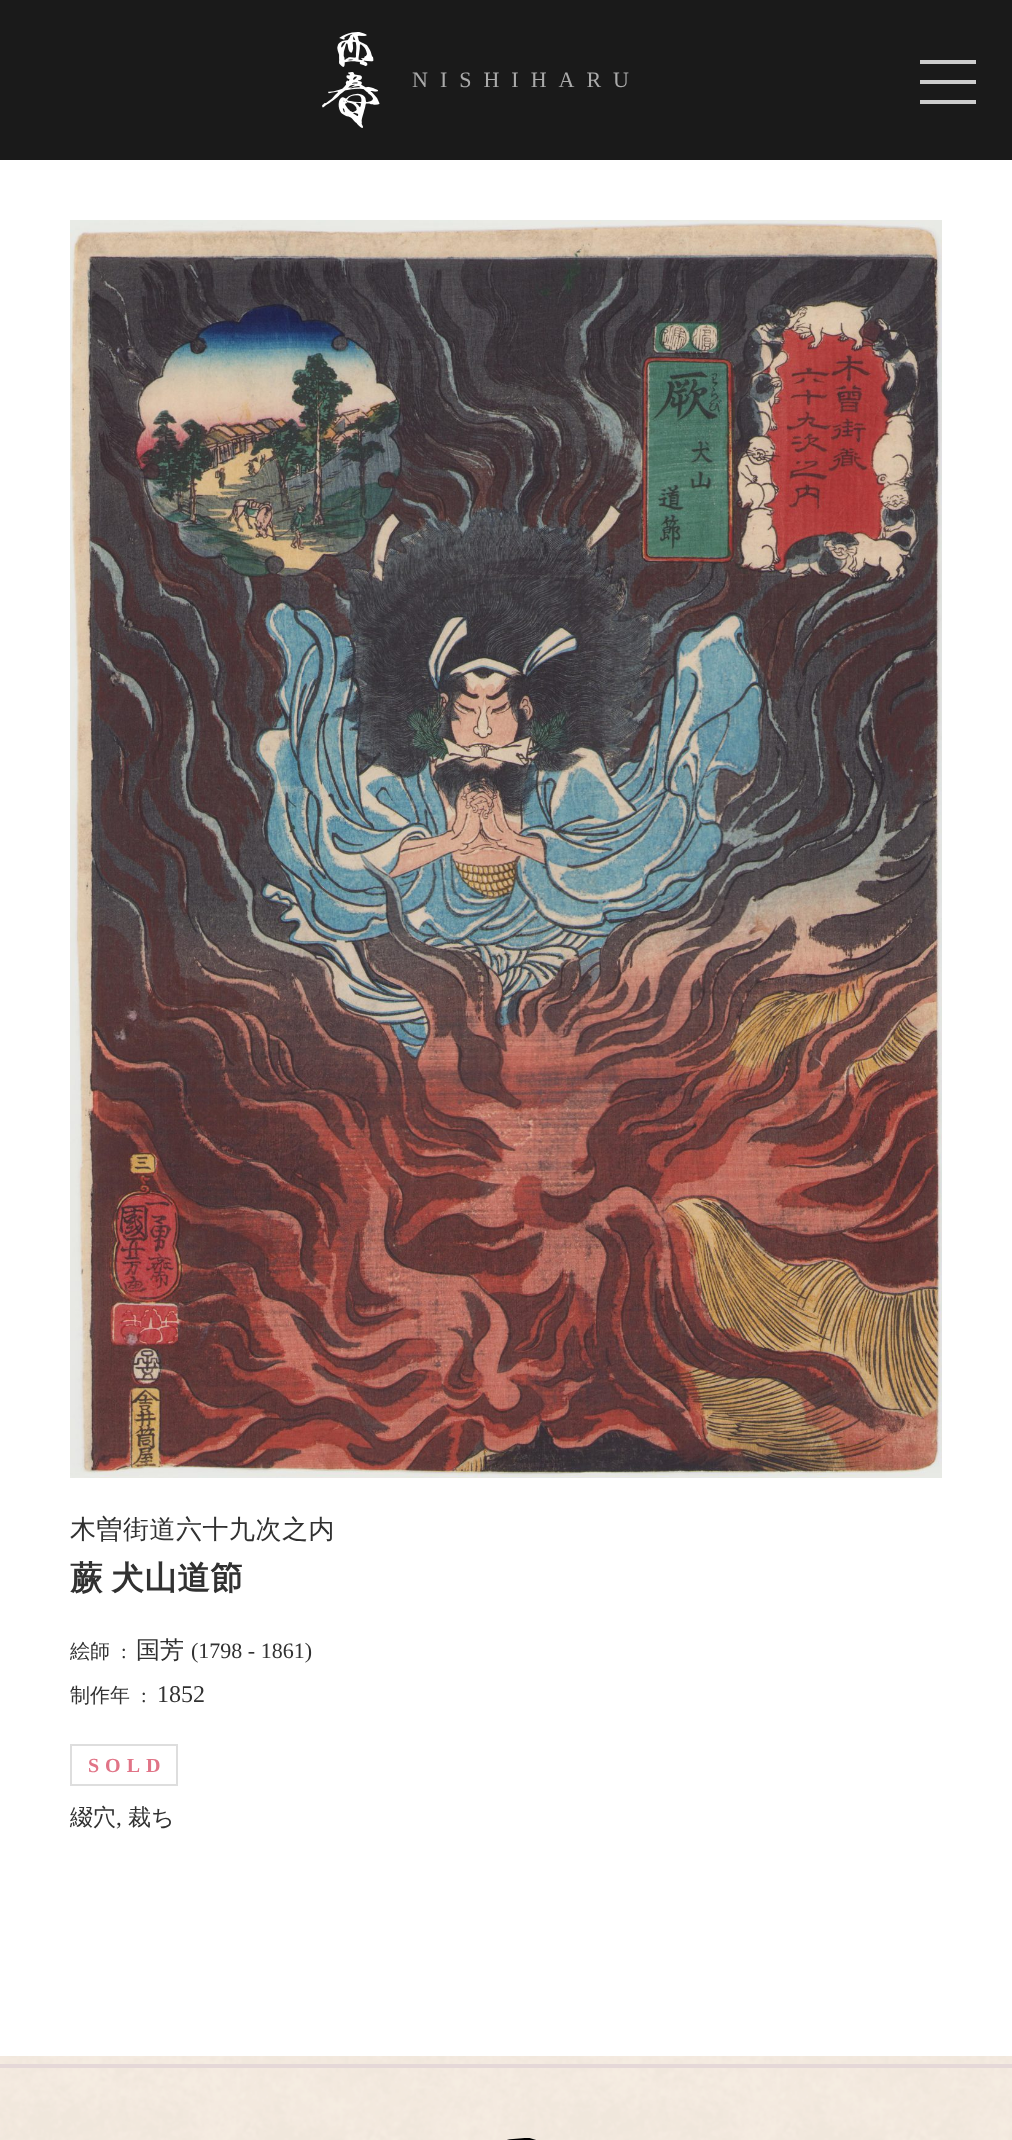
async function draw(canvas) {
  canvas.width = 1012;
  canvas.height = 2140;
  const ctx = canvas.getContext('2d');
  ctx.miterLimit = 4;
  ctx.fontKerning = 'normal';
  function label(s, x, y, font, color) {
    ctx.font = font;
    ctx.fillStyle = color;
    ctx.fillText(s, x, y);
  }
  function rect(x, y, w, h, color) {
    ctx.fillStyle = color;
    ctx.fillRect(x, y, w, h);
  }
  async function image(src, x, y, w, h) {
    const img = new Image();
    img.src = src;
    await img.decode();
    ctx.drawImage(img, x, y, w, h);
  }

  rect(0, 0, 1012, 2140, '#fff');
  rect(0, 0, 1012, 160, '#1a1a1a');
  await image('assets/img1.png', 322, 32, 58, 96);
  ctx.letterSpacing = '12px';
  label('NISHIHARU', 412, 87, '22px Liberation Serif', '#aaa');
  rect(920, 60, 56, 4, '#ccc');
  rect(920, 80, 56, 4, '#ccc');
  rect(920, 100, 56, 4, '#ccc');
  await image('assets/img2.png', 70, 220, 872, 1258);
  ctx.letterSpacing = '0.5px';
  label('木曽街道六十九次之内', 70, 1538, '500 26px WenQuanYi Zen Hei', '#313131');
  ctx.wordSpacing = '-2px';
  label('蕨 犬山道節', 70, 1589, 'bold 32.5px WenQuanYi Zen Hei', '#313131');
  ctx.letterSpacing = '0px';
  ctx.wordSpacing = '0px';
  label('絵師', 70, 1658, '500 20px WenQuanYi Zen Hei', '#313131');
  label(':', 121, 1658, '20px Liberation Serif', '#313131');
  label('国芳', 136, 1658, '500 24px WenQuanYi Zen Hei', '#313131');
  label('(1798 - 1861)', 191, 1658, '22px Liberation Serif', '#313131');
  label('制作年', 70, 1702, '500 20px WenQuanYi Zen Hei', '#313131');
  label(':', 141, 1702, '20px Liberation Serif', '#313131');
  label('1852', 157, 1702, '24px Liberation Serif', '#313131');
  ctx.strokeStyle = '#dedede';
  ctx.lineWidth = 2;
  ctx.strokeRect(71, 1745, 106, 40);
  ctx.letterSpacing = '6px';
  label('SOLD', 88, 1772, 'bold 20px Liberation Serif', '#e17487');
  ctx.letterSpacing = '0px';
  label('綴穴', 70, 1825, '500 23px WenQuanYi Zen Hei', '#313131');
  label(',', 116, 1825, '23px Liberation Serif', '#313131');
  label('裁ち', 128, 1825, '500 23px WenQuanYi Zen Hei', '#313131');
  await image('assets/img3.png', 0, 2056, 1012, 84);
  rect(0, 2064, 1012, 4, '#e5d8d8');
  await image('assets/img4.png', 507, 2138, 29, 2);
}

draw(document.querySelector('canvas'));
